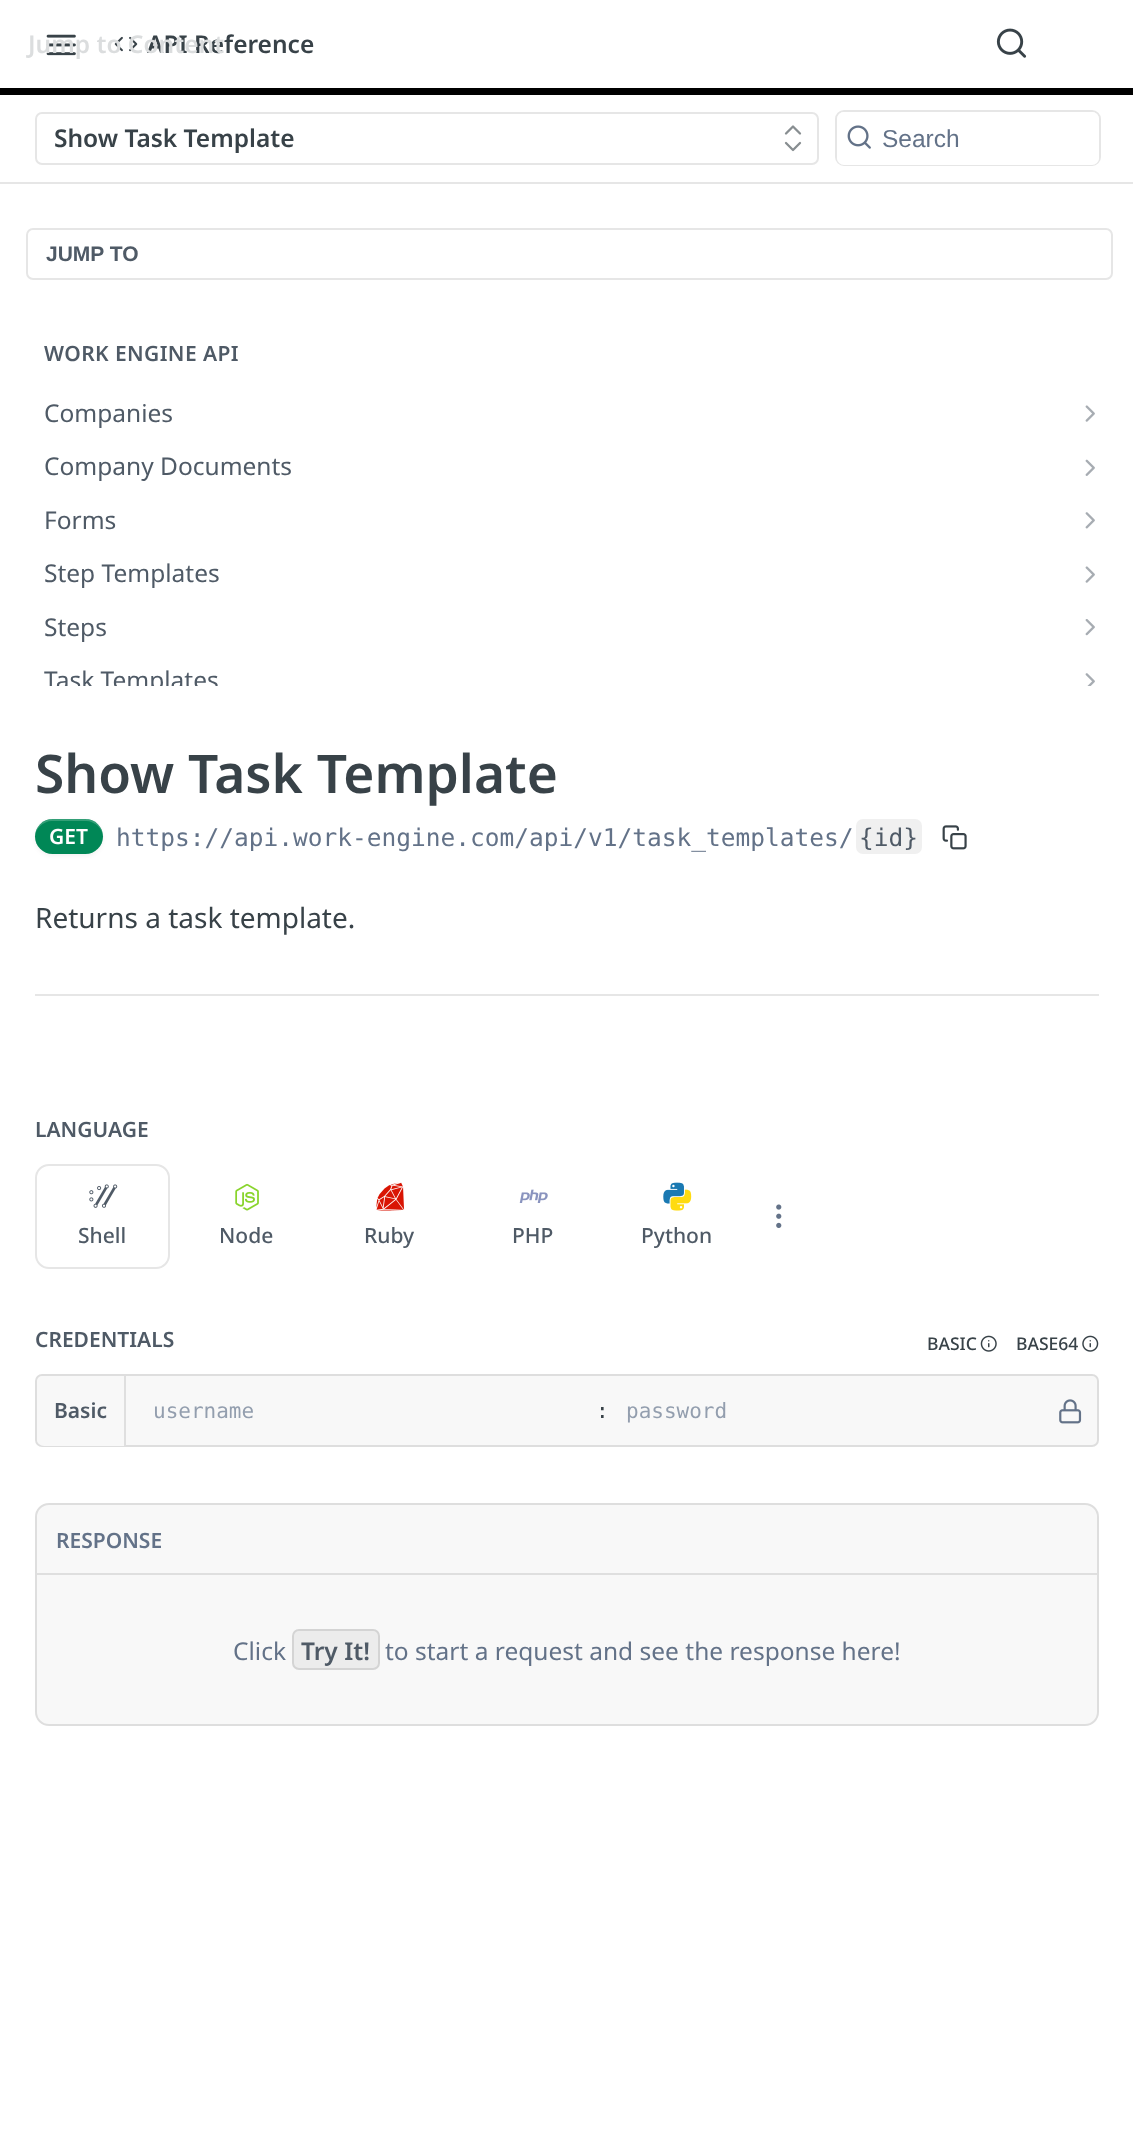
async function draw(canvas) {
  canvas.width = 1133;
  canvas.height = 2130;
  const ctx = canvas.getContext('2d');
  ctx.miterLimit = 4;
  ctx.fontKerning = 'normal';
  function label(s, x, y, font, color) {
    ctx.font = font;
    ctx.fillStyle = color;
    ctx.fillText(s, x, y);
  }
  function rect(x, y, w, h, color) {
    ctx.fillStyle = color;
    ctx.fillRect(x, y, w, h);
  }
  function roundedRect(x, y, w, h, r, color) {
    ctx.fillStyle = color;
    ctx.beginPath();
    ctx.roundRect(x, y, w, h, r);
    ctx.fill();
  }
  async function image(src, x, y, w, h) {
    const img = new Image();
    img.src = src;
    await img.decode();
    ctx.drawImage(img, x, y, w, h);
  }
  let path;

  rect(0, 0, 1133, 2130, '#fff');
  rect(0, 182, 1133, 2, '#e6e6e6');
  rect(0, 88, 1133, 7, '#000');
  await image('assets/img1.png', 46, 34, 30, 22);
  await image('assets/img2.png', 114, 36, 24, 16);
  label('API Reference', 147, 53, '600 24.5px Noto Sans', '#384248');
  label('Jump to Content', 28, 53, '600 24.5px Noto Sans', '#dbddde');
  await image('assets/img3.png', 996, 28, 31, 30);
  ctx.beginPath();
  ctx.roundRect(36, 113, 782, 51, 6);
  ctx.strokeStyle = '#e6e6e6';
  ctx.lineWidth = 2;
  ctx.stroke();
  label('Show Task Template', 54, 147, '600 24.5px Noto Sans', '#384248');
  path = new Path2D('M786 143L793 150L800 143M800 133.5L793 126.5L786 133.5');
  ctx.strokeStyle = '#888e91';
  ctx.lineWidth = 2.3;
  ctx.lineCap = 'round';
  ctx.lineJoin = 'round';
  ctx.stroke(path);
  ctx.beginPath();
  ctx.roundRect(836, 111, 264, 54, 8);
  ctx.strokeStyle = '#e6e6e6';
  ctx.lineWidth = 2;
  ctx.lineJoin = 'miter';
  ctx.stroke();
  roundedRect(837, 112, 262, 53, 7, '#fff');
  await image('assets/img4.png', 847, 125, 24, 24);
  label('Search', 882, 147, '24.5px Liberation Sans', '#637288');
  ctx.beginPath();
  ctx.roundRect(27, 229, 1085, 50, 6);
  ctx.stroke();
  label('JUMP TO', 46, 261, 'bold 21px Liberation Sans', '#4f5a66');
  ctx.letterSpacing = '0.4px';
  label('WORK ENGINE API', 44, 361, '600 21px Noto Sans', '#4f5a66');
  ctx.letterSpacing = '0px';
  label('Companies', 44, 422, '24.5px Noto Sans', '#4f5a66');
  await image('assets/img5.png', 1085, 405, 10, 17);
  label('Company Documents', 44, 475, '24.5px Noto Sans', '#4f5a66');
  await image('assets/img6.png', 1085, 459, 10, 17);
  label('Forms', 44, 529, '24.5px Noto Sans', '#4f5a66');
  await image('assets/img7.png', 1085, 512, 10, 17);
  label('Step Templates', 44, 582, '24.5px Noto Sans', '#4f5a66');
  await image('assets/img5.png', 1085, 566, 10, 17);
  label('Steps', 44, 636, '24.5px Noto Sans', '#4f5a66');
  await image('assets/img8.png', 1085, 619, 10, 17);
  ctx.save();
  ctx.beginPath();
  ctx.rect(0, 182, 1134, 504);
  ctx.clip();
  label('Task Templates', 44, 689, '24.5px Noto Sans', '#4f5a66');
  ctx.restore();
  await image('assets/img9.png', 1085, 673, 10, 13);
  rect(35, 994, 1064, 2, '#e6e6e6');
  label('Show Task Template', 35, 793, '600 53.25px Noto Sans', '#384248');
  ctx.fillStyle = '#0000000d';
  ctx.filter = 'blur(2px)';
  ctx.beginPath();
  ctx.roundRect(35, 821, 68, 35, 17.5);
  ctx.fill();
  ctx.filter = 'none';
  roundedRect(35, 819, 68, 35, 17.5, '#008756');
  ctx.fillStyle = '#ffffff33';
  path = new Path2D('M52 821H86C95 821 103 829 103 837C103 834 102 830 100 827C93 816 80 819 69 819C58 819 45 816 38 827C36 830 35 834 35 837C35 829 43 821 52 821Z');
  ctx.fill(path);
  label('GET', 49, 844, '600 21px Noto Sans', '#fff');
  label('https://api.work-engine.com/api/v1/task_templates/', 116, 846, '24.5px DejaVu Sans Mono', '#637288');
  roundedRect(856, 819, 66, 35, 7, '#f0f0f0');
  label('{id}', 859, 846, '24.5px DejaVu Sans Mono', '#4f5a66');
  await image('assets/img10.png', 942, 825, 25, 25);
  label('Returns a task template.', 35, 928, '28px Noto Sans', '#384248');
  label('LANGUAGE', 35, 1137, '600 21px Noto Sans', '#4f5a66');
  await image('assets/img11.png', 776, 1204, 6, 24);
  ctx.beginPath();
  ctx.roundRect(36, 1165, 133, 103, 13);
  ctx.stroke();
  await image('assets/img12.png', 89, 1184, 29, 24);
  label('Shell', 78, 1243, '500 21px Noto Sans', '#4f5a66');
  await image('assets/img13.png', 235, 1183, 24, 28);
  label('Node', 219, 1243, '500 21px Noto Sans', '#4f5a66');
  await image('assets/img14.png', 376, 1182, 29, 29);
  label('Ruby', 364, 1243, '500 21px Noto Sans', '#4f5a66');
  await image('assets/img15.png', 519, 1189, 29, 14);
  label('PHP', 512, 1243, '500 21px Noto Sans', '#4f5a66');
  await image('assets/img16.png', 663, 1182, 21, 22);
  await image('assets/img17.png', 670, 1189, 22, 22);
  label('Python', 641, 1243, '500 21px Noto Sans', '#4f5a66');
  label('CREDENTIALS', 35, 1347, '600 21px Noto Sans', '#4f5a66');
  label('BASIC', 927, 1350, '500 17.5px Noto Sans', '#384248');
  await image('assets/img18.png', 980, 1335, 17, 17);
  label('BASE64', 1016, 1350, '500 17.5px Noto Sans', '#384248');
  await image('assets/img19.png', 1082, 1335, 17, 17);
  roundedRect(35, 1374, 1064, 73, 7, '#f8f8f8');
  ctx.beginPath();
  ctx.roundRect(36, 1375, 1062, 71, 6);
  ctx.strokeStyle = '#0000001a';
  ctx.stroke();
  ctx.beginPath();
  ctx.roundRect(37, 1376, 89, 70, [7, 0, 0, 7]);
  ctx.fill();
  rect(124, 1376, 2, 70, '#dfdfdf');
  label('Basic', 54, 1418, '600 21px Noto Sans', '#4f5a66');
  label('username', 153, 1418, '21px DejaVu Sans Mono', '#939eae');
  label(':', 596, 1418, '21px DejaVu Sans Mono', '#384248');
  label('password', 626, 1418, '21px DejaVu Sans Mono', '#939eae');
  await image('assets/img20.png', 1059, 1399, 23, 25);
  roundedRect(35, 1503, 1064, 223, 14, '#f8f8f8');
  ctx.beginPath();
  ctx.roundRect(36, 1504, 1062, 221, 13);
  ctx.stroke();
  rect(37, 1573, 1060, 2, '#dfdfdf');
  label('RESPONSE', 56, 1548, '600 21px Noto Sans', '#637288');
  label('Click', 233, 1660, '24.5px Noto Sans', '#637288');
  roundedRect(292, 1629, 88, 41, 7, '#ececec');
  ctx.beginPath();
  ctx.roundRect(293, 1630, 86, 39, 6);
  ctx.stroke();
  label('Try It!', 301, 1660, '600 24.5px Noto Sans', '#4f5a66');
  label('to start a request and see the response here!', 385, 1660, '24.5px Noto Sans', '#637288');
}

draw(document.querySelector('canvas'));
